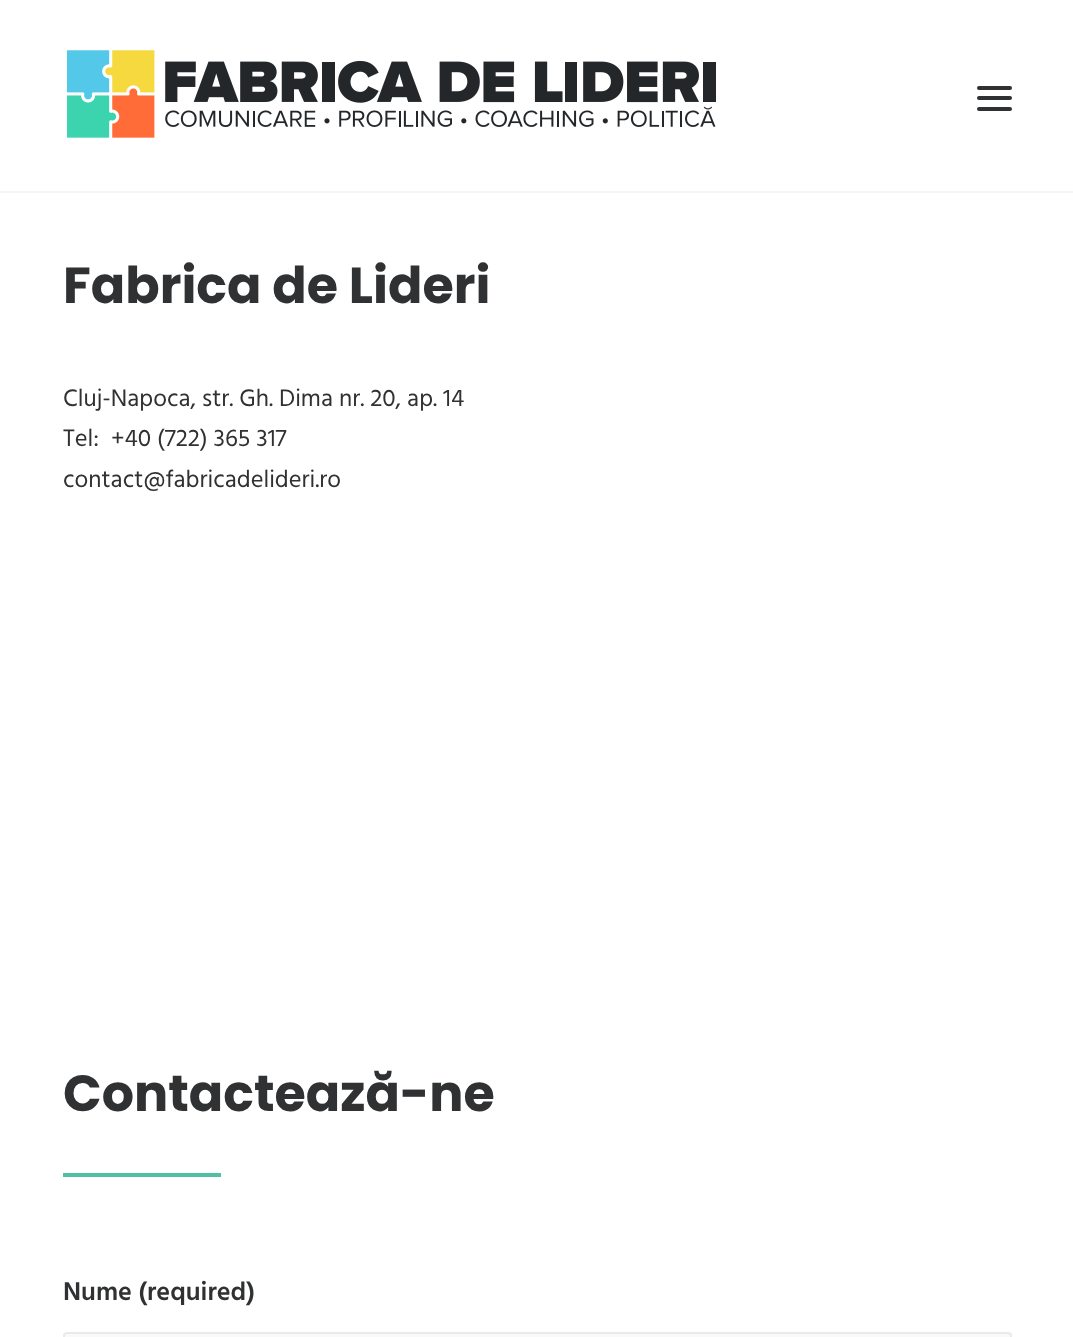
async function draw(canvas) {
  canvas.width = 1073;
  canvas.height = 1337;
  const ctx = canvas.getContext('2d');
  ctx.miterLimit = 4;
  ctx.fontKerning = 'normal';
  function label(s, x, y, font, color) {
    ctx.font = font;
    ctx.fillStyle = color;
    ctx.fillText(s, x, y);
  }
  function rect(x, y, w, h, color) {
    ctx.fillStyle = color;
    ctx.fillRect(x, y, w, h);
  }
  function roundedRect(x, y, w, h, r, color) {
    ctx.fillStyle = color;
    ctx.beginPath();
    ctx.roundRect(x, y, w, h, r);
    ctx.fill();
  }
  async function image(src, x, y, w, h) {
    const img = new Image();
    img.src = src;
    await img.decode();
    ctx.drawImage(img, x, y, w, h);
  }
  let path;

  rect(0, 0, 1073, 1337, '#fff');
  rect(0, 191, 1073, 2, '#f5f5f5');
  await image('assets/img1.png', 67, 50, 649, 88);
  roundedRect(977, 96, 35, 4, 2, '#303133');
  roundedRect(977, 86, 35, 4, 2, '#303133');
  roundedRect(977, 107, 35, 4, 2, '#303133');
  label('Fabrica de Lideri', 63, 303, 'bold 50.75px Poppins', '#303133');
  label('Cluj-Napoca, str. Gh. Dima nr. 20, ap. 14', 63, 406, '24.5px Hind', '#303133');
  label('Tel:  +40 (722) 365 317', 63, 446, '24.5px Hind', '#303133');
  label('contact@fabricadelideri.ro', 63, 487, '24.5px Hind', '#303133');
  label('Contactează-ne', 63, 1111, 'bold 50.75px Poppins', '#303133');
  rect(63, 1173, 158, 4, '#4fc0a5');
  label('Nume (required)', 63, 1300, '600 26.25px Hind', '#303133');
  ctx.fillStyle = '#f9f9f9';
  path = new Path2D('M66 1337H1008C1009 1337 1010 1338 1010 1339C1010 1337 1011 1334 1008 1334H67L65 1335V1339Z');
  ctx.fill(path);
  ctx.beginPath();
  ctx.roundRect(64, 1333, 947, 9, 3);
  ctx.strokeStyle = '#eaeaea';
  ctx.lineWidth = 2;
  ctx.stroke();
}

draw(document.querySelector('canvas'));
